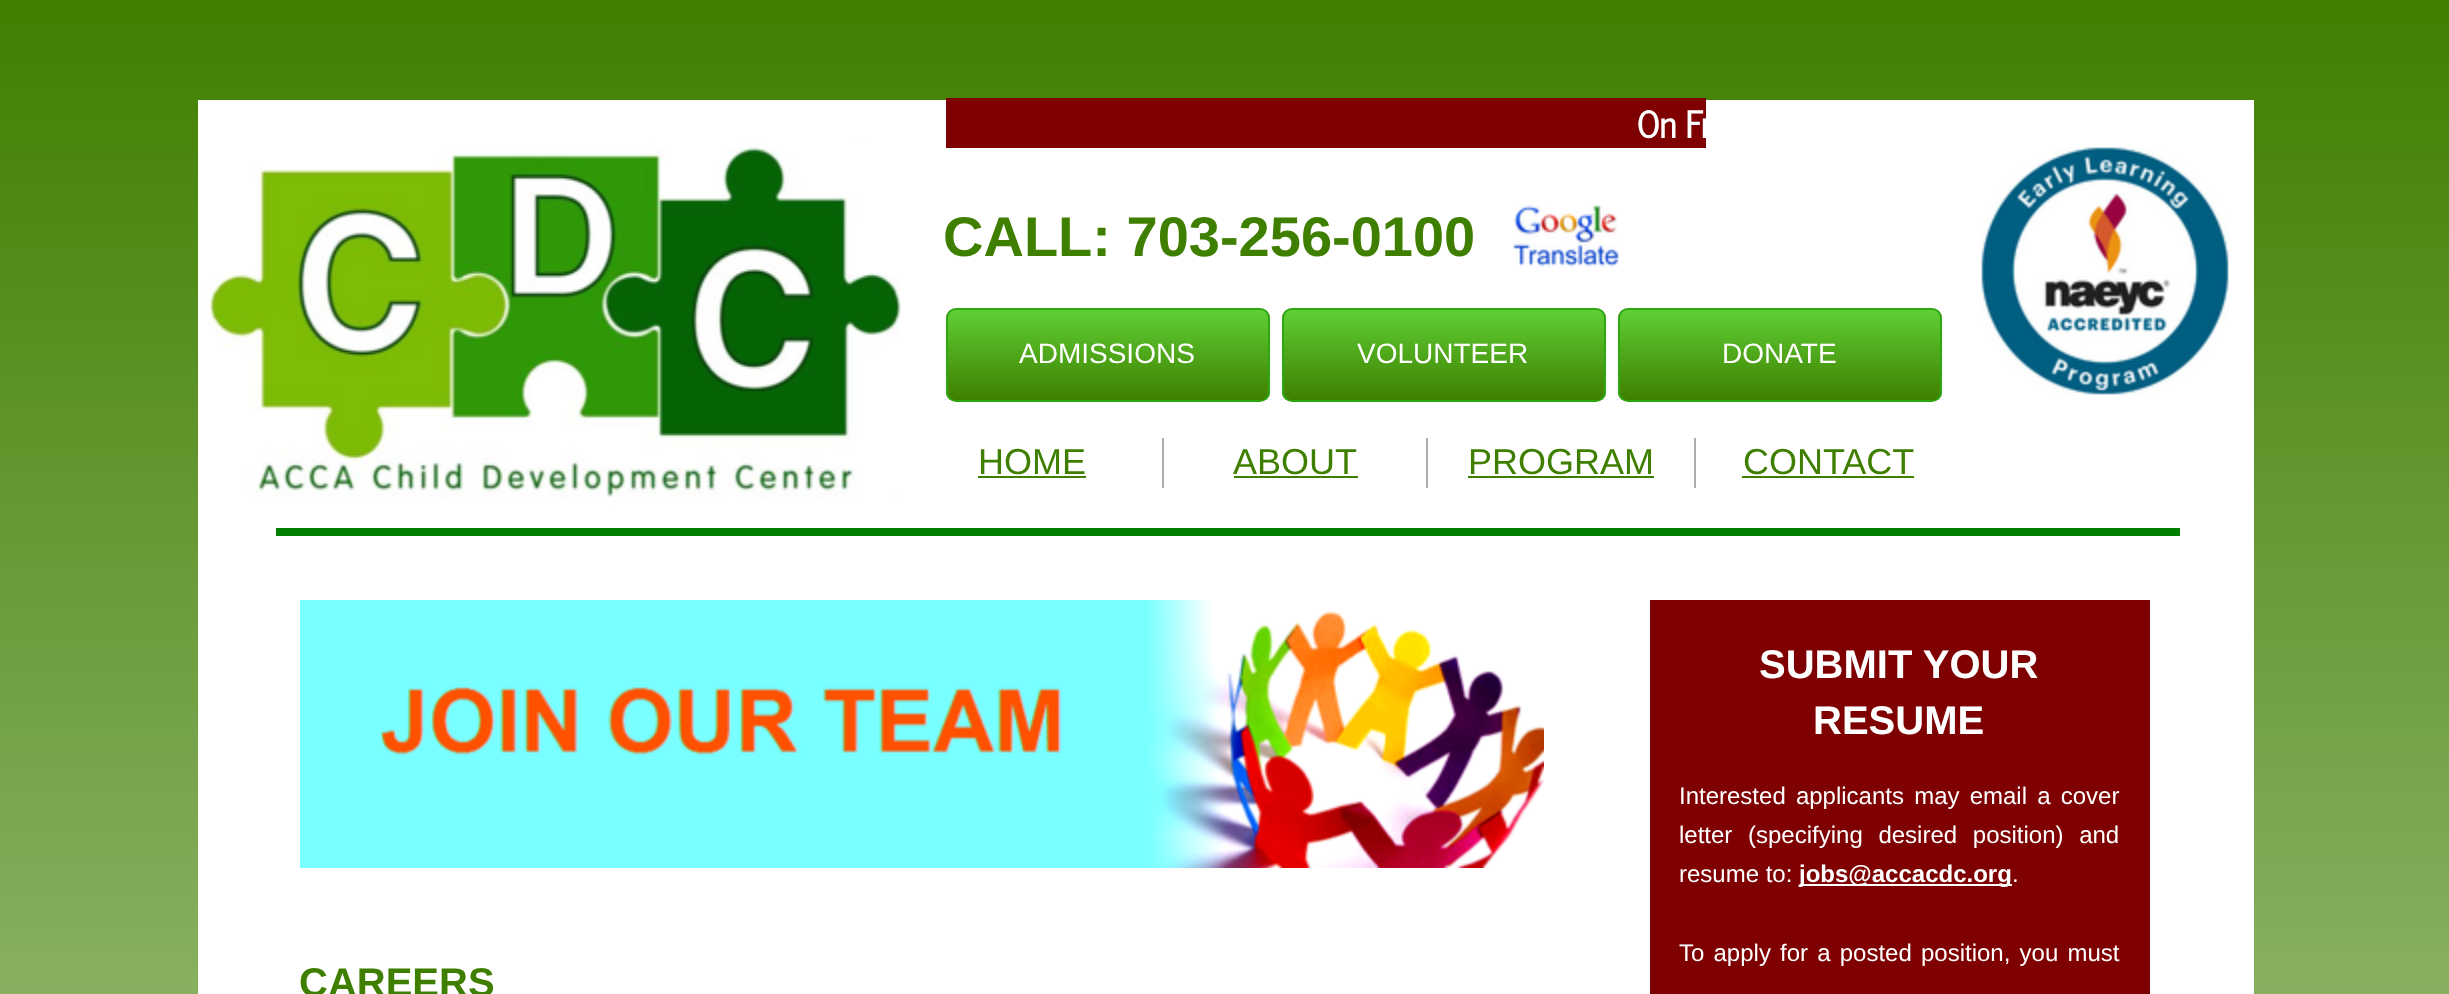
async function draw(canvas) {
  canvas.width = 2449;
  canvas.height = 994;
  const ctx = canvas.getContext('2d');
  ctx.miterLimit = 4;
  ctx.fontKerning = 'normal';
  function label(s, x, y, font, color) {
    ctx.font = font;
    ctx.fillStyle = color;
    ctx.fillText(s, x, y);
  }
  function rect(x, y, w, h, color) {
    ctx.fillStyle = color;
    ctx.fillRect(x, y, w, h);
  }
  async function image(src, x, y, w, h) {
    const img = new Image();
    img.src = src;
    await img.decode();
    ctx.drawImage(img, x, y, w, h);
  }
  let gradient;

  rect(0, 0, 2449, 994, '#fff');
  gradient = ctx.createLinearGradient(1225, 0, 1225, 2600);
  gradient.addColorStop(0, '#3f7f00');
  gradient.addColorStop(1, '#fff');
  ctx.fillStyle = gradient;
  ctx.fillRect(0, 0, 2449, 994);
  rect(198, 100, 2056, 894, '#fff');
  rect(946, 98, 760, 50, '#7f0000');
  ctx.save();
  ctx.beginPath();
  ctx.rect(946, 98, 760, 50);
  ctx.clip();
  label('On Fr', 1637, 138, 'bold 36px News Cycle', '#fff');
  ctx.restore();
  await image('assets/img1.png', 206, 140, 695, 366);
  label('CALL: 703-256-0100', 943, 256, 'bold 56px Liberation Sans', '#3f7f00');
  await image('assets/img2.png', 1513, 205, 106, 62);
  await image('assets/img3.png', 1981, 147, 248, 248);
  ctx.save();
  ctx.beginPath();
  ctx.roundRect(946, 308, 324, 94, 10);
  ctx.clip();
  gradient = ctx.createLinearGradient(1108, 310, 1108, 400);
  gradient.addColorStop(0, '#5fcf34');
  gradient.addColorStop(1, '#3f7f00');
  ctx.fillStyle = gradient;
  ctx.fillRect(946, 310, 324, 90);
  ctx.restore();
  ctx.beginPath();
  ctx.roundRect(947, 309, 322, 92, 9);
  ctx.strokeStyle = '#30a612';
  ctx.lineWidth = 2;
  ctx.stroke();
  label('ADMISSIONS', 1019, 363, '28px Liberation Sans', '#fff');
  ctx.save();
  ctx.beginPath();
  ctx.roundRect(1282, 308, 324, 94, 10);
  ctx.clip();
  gradient = ctx.createLinearGradient(1444, 310, 1444, 400);
  gradient.addColorStop(0, '#5fcf34');
  gradient.addColorStop(1, '#3f7f00');
  ctx.fillStyle = gradient;
  ctx.fillRect(1282, 310, 324, 90);
  ctx.restore();
  ctx.beginPath();
  ctx.roundRect(1283, 309, 322, 92, 9);
  ctx.stroke();
  label('VOLUNTEER', 1357, 363, '28px Liberation Sans', '#fff');
  ctx.save();
  ctx.beginPath();
  ctx.roundRect(1618, 308, 324, 94, 10);
  ctx.clip();
  gradient = ctx.createLinearGradient(1780, 310, 1780, 400);
  gradient.addColorStop(0, '#5fcf34');
  gradient.addColorStop(1, '#3f7f00');
  ctx.fillStyle = gradient;
  ctx.fillRect(1618, 310, 324, 90);
  ctx.restore();
  ctx.beginPath();
  ctx.roundRect(1619, 309, 322, 92, 9);
  ctx.stroke();
  label('DONATE', 1722, 363, '28px Liberation Sans', '#fff');
  rect(1162, 438, 2, 50, '#aeaeae');
  label('HOME', 978, 474, '36px Liberation Sans', '#3f7f00');
  rect(978, 476, 108, 2, '#3f7f00');
  rect(1426, 438, 2, 50, '#aeaeae');
  label('ABOUT', 1233, 474, '36px Liberation Sans', '#3f7f00');
  rect(1234, 476, 124, 2, '#3f7f00');
  rect(1694, 438, 2, 50, '#aeaeae');
  label('PROGRAM', 1468, 474, '36px Liberation Sans', '#3f7f00');
  rect(1468, 476, 186, 2, '#3f7f00');
  label('CONTACT', 1743, 474, '36px Liberation Sans', '#3f7f00');
  rect(1742, 476, 172, 2, '#3f7f00');
  rect(276, 528, 1904, 8, '#007f00');
  await image('assets/img4.png', 300, 600, 1244, 268);
  rect(1650, 600, 500, 394, '#7f0000');
  label('SUBMIT YOUR', 1759, 678, 'bold 40px Liberation Sans', '#fff');
  label('RESUME', 1813, 734, 'bold 40px Liberation Sans', '#fff');
  ctx.wordSpacing = '3.5px';
  label('Interested applicants may email a cover', 1679, 804, '24px Liberation Sans', '#fff');
  ctx.wordSpacing = '9px';
  label('letter (specifying desired position) and', 1679, 843, '24px Liberation Sans', '#fff');
  ctx.wordSpacing = '0px';
  label('resume to:', 1679, 882, '24px Liberation Sans', '#fff');
  rect(1800, 884, 212, 2, '#fff');
  label('jobs@accacdc.org', 1799, 882, 'bold 24px Liberation Sans', '#fff');
  label('.', 2012, 882, '24px Liberation Sans', '#fff');
  ctx.wordSpacing = '2.5px';
  label('To apply for a posted position, you must', 1679, 961, '24px Liberation Sans', '#fff');
  ctx.wordSpacing = '0px';
  label('CAREERS', 299, 996, 'bold 40px Liberation Sans', '#3f7f00');
}

draw(document.querySelector('canvas'));
